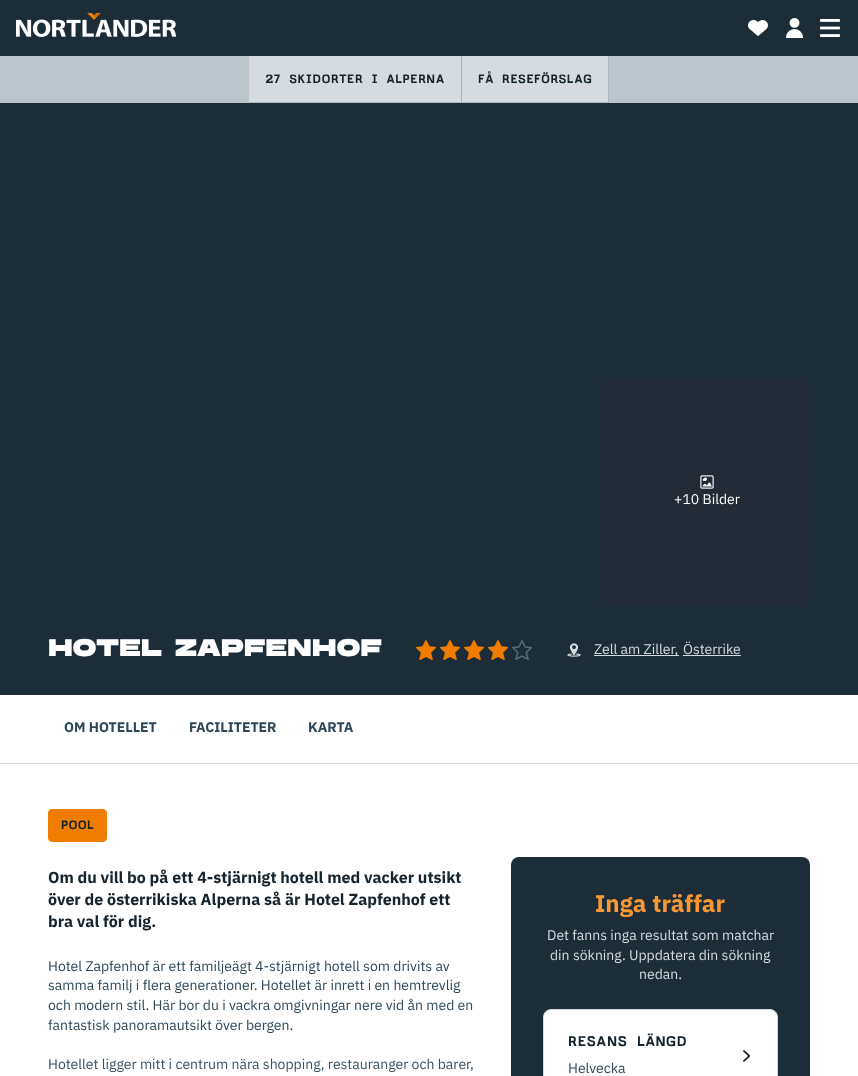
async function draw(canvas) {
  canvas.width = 858;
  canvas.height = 1076;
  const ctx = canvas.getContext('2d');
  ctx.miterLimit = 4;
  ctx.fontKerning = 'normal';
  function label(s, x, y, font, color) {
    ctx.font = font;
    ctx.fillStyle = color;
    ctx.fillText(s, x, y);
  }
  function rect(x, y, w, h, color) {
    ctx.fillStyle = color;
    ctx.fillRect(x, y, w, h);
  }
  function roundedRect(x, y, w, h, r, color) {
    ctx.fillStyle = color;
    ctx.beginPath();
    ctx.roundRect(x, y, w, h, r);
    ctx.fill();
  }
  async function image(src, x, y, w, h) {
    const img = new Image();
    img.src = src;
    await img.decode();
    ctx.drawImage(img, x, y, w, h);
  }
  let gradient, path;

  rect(0, 0, 858, 1076, '#fff');
  rect(0, 0, 858, 695, '#1c2d38');
  await image('assets/img1.png', 16, 12, 160, 25);
  await image('assets/img2.png', 748, 20, 20, 16);
  await image('assets/img3.png', 786, 18, 17, 20);
  await image('assets/img4.png', 820, 19, 20, 18);
  rect(0, 56, 858, 47, '#bac5cc');
  rect(249, 56, 212, 46, '#d5dbde');
  rect(461, 56, 1, 47, '#abb6bd');
  rect(249, 102, 213, 1, '#abb6bd');
  ctx.letterSpacing = '0.6px';
  label('27 SKIDORTER I ALPERNA', 265, 83, 'bold 12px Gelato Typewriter', '#16242d');
  rect(462, 56, 146, 46, '#d5dbde');
  rect(608, 56, 1, 47, '#abb6bd');
  rect(462, 102, 147, 1, '#abb6bd');
  label('FÅ RESEFÖRSLAG', 478, 83, 'bold 12px Gelato Typewriter', '#16242d');
  roundedRect(604, 378, 206, 227, 8, '#222b36');
  await image('assets/img5.png', 700, 475, 14, 14);
  ctx.letterSpacing = '0px';
  label('+10 Bilder', 674, 504, '14px IBM Plex Sans', '#fff');
  label('HOTEL ZAPFENHOF', 48, 656, '24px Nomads', '#fff');
  await image('assets/img6.png', 416, 640, 20, 20);
  await image('assets/img6.png', 440, 640, 20, 20);
  await image('assets/img6.png', 464, 640, 20, 20);
  await image('assets/img6.png', 488, 640, 20, 20);
  await image('assets/img7.png', 512, 640, 20, 20);
  await image('assets/img8.png', 567, 643, 14, 14);
  rect(594, 655, 85, 1, '#d5dbde');
  label('Zell am Ziller,', 594, 654, '14px IBM Plex Sans', '#d5dbde');
  label('Österrike', 683, 654, '14px IBM Plex Sans', '#d5dbde');
  rect(683, 655, 58, 1, '#d5dbde');
  rect(0, 763, 858, 1, '#d5dbde');
  label('OM HOTELLET', 64, 732, 'bold 14px IBM Plex Sans', '#2f4858');
  label('FACILITETER', 189, 732, 'bold 14px IBM Plex Sans', '#2f4858');
  label('KARTA', 308, 732, 'bold 14px IBM Plex Sans', '#2f4858');
  ctx.fillStyle = '#f07d00';
  ctx.beginPath();
  ctx.roundRect(48.5, 809.5, 58, 32, 3.5);
  ctx.fill();
  ctx.strokeStyle = '#f07d00';
  ctx.stroke();
  ctx.letterSpacing = '0.6px';
  label('POOL', 61, 829, 'bold 12px Gelato Typewriter', '#16242d');
  ctx.letterSpacing = '0px';
  label('Om du vill bo på ett 4-stjärnigt hotell med vacker utsikt', 48, 883, 'bold 16px IBM Plex Sans', '#16242d');
  label('över de österrikiska Alperna så är Hotel Zapfenhof ett', 48, 905, 'bold 16px IBM Plex Sans', '#16242d');
  label('bra val för dig.', 48, 927, 'bold 16px IBM Plex Sans', '#16242d');
  label('Hotel Zapfenhof är ett familjeägt 4-stjärnigt hotell som drivits av', 48, 971, '14px IBM Plex Sans', '#2f4858');
  label('samma familj i flera generationer. Hotellet är inrett i en hemtrevlig', 48, 990, '14px IBM Plex Sans', '#2f4858');
  label('och modern stil. Här bor du i vackra omgivningar nere vid ån med en', 48, 1010, '14px IBM Plex Sans', '#2f4858');
  label('fantastisk panoramautsikt över bergen.', 48, 1030, '14px IBM Plex Sans', '#2f4858');
  label('Hotellet ligger mitt i centrum nära shopping, restauranger och barer,', 48, 1069, '14px IBM Plex Sans', '#2f4858');
  gradient = ctx.createLinearGradient(264, 957, 264, 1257);
  gradient.addColorStop(0.33, '#ffffff00');
  gradient.addColorStop(1, '#fff');
  ctx.fillStyle = gradient;
  ctx.fillRect(49, 1060, 424, 12);
  roundedRect(511, 857, 299, 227, 8, '#1c2d38');
  label('Inga träffar', 595, 912, 'bold 24px IBM Plex Sans', '#f89733');
  label('Det fanns inga resultat som matchar', 547, 940, '14px IBM Plex Sans', '#d5dbde');
  label('din sökning. Uppdatera din sökning', 550, 960, '14px IBM Plex Sans', '#d5dbde');
  label('nedan.', 639, 979, '14px IBM Plex Sans', '#d5dbde');
  ctx.fillStyle = '#fff';
  path = new Path2D('M551 1009.5H770C774 1009.5 777.5 1013 777.5 1017V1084.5H543.5V1017C543.5 1013 547 1009.5 551 1009.5Z');
  ctx.fill(path);
  ctx.strokeStyle = '#d5dbde';
  ctx.stroke(path);
  ctx.letterSpacing = '0.75px';
  label('RESANS LÄNGD', 568, 1046, 'bold 14px Gelato Typewriter', '#16242d');
  ctx.letterSpacing = '0px';
  label('Helvecka', 568, 1073, '14px IBM Plex Sans', '#2f4858');
  await image('assets/img9.png', 743, 1050, 7, 12);
}

draw(document.querySelector('canvas'));
